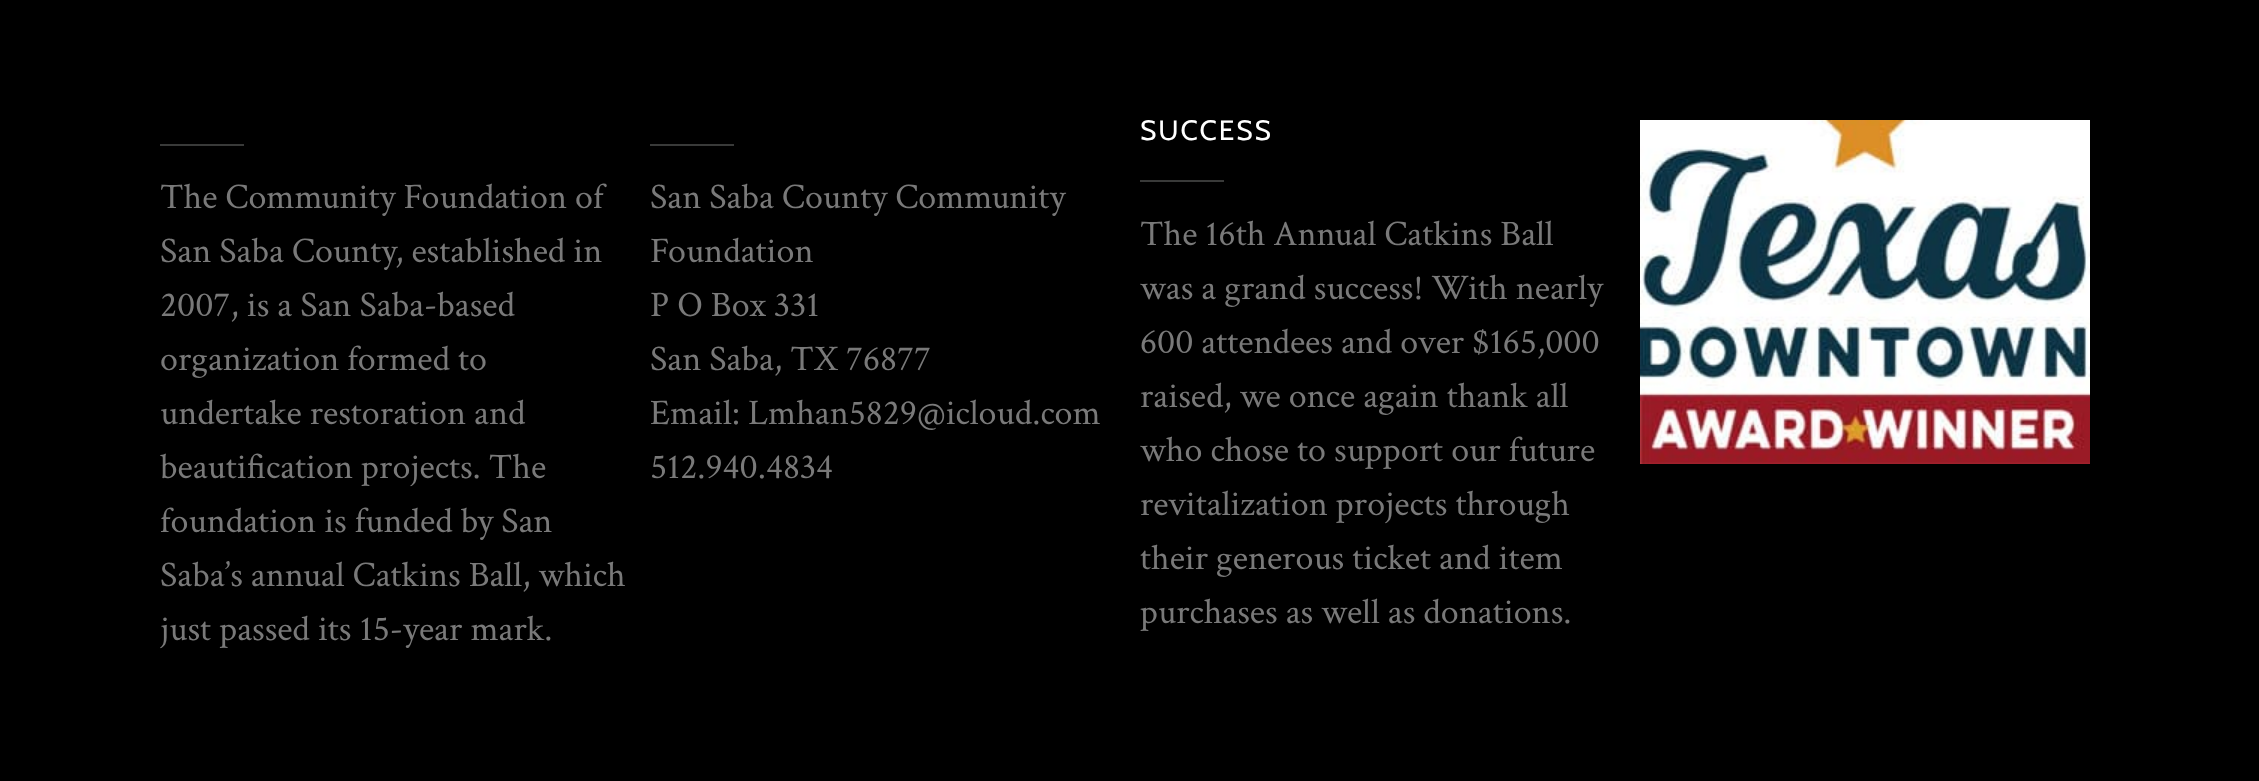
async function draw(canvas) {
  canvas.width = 2259;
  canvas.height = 781;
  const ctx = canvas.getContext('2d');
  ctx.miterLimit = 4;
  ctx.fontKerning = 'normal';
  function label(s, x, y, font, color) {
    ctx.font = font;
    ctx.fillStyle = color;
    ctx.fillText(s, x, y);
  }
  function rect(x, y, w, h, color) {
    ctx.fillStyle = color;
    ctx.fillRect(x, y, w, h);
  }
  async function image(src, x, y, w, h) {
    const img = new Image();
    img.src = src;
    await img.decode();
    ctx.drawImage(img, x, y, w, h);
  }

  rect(0, 0, 2259, 781, '#000');
  rect(160, 144, 84, 2, '#393a39');
  label('The Community Foundation of', 160, 208, '36px Crimson Text', '#797979');
  label('San Saba County, established in', 160, 262, '36px Crimson Text', '#797979');
  label('2007, is a San Saba-based', 160, 316, '36px Crimson Text', '#797979');
  label('organization formed to', 160, 370, '36px Crimson Text', '#797979');
  label('undertake restoration and', 160, 424, '36px Crimson Text', '#797979');
  label('beautification projects. The', 160, 478, '36px Crimson Text', '#797979');
  label('foundation is funded by San', 160, 532, '36px Crimson Text', '#797979');
  label('Saba’s annual Catkins Ball, which', 160, 586, '36px Crimson Text', '#797979');
  label('just passed its 15-year mark.', 160, 640, '36px Crimson Text', '#797979');
  rect(650, 144, 84, 2, '#393a39');
  label('San Saba County Community', 650, 208, '36px Crimson Text', '#797979');
  label('Foundation', 650, 262, '36px Crimson Text', '#797979');
  label('P O Box 331', 650, 316, '36px Crimson Text', '#797979');
  label('San Saba, TX 76877', 650, 370, '36px Crimson Text', '#797979');
  label('Email: Lmhan5829@icloud.com', 650, 424, '36px Crimson Text', '#797979');
  label('512.940.4834', 650, 478, '36px Crimson Text', '#797979');
  ctx.letterSpacing = '2px';
  label('SUCCESS', 1140, 140, '28px Cabin', '#fff');
  rect(1140, 180, 84, 2, '#393a39');
  ctx.letterSpacing = '0px';
  label('The 16th Annual Catkins Ball', 1140, 245, '36px Crimson Text', '#797979');
  label('was a grand success! With nearly', 1140, 299, '36px Crimson Text', '#797979');
  label('600 attendees and over $165,000', 1140, 353, '36px Crimson Text', '#797979');
  label('raised, we once again thank all', 1140, 407, '36px Crimson Text', '#797979');
  label('who chose to support our future', 1140, 461, '36px Crimson Text', '#797979');
  label('revitalization projects through', 1140, 515, '36px Crimson Text', '#797979');
  label('their generous ticket and item', 1140, 569, '36px Crimson Text', '#797979');
  label('purchases as well as donations.', 1140, 623, '36px Crimson Text', '#797979');
  await image('assets/img1.png', 1640, 120, 450, 344);
}

draw(document.querySelector('canvas'));
